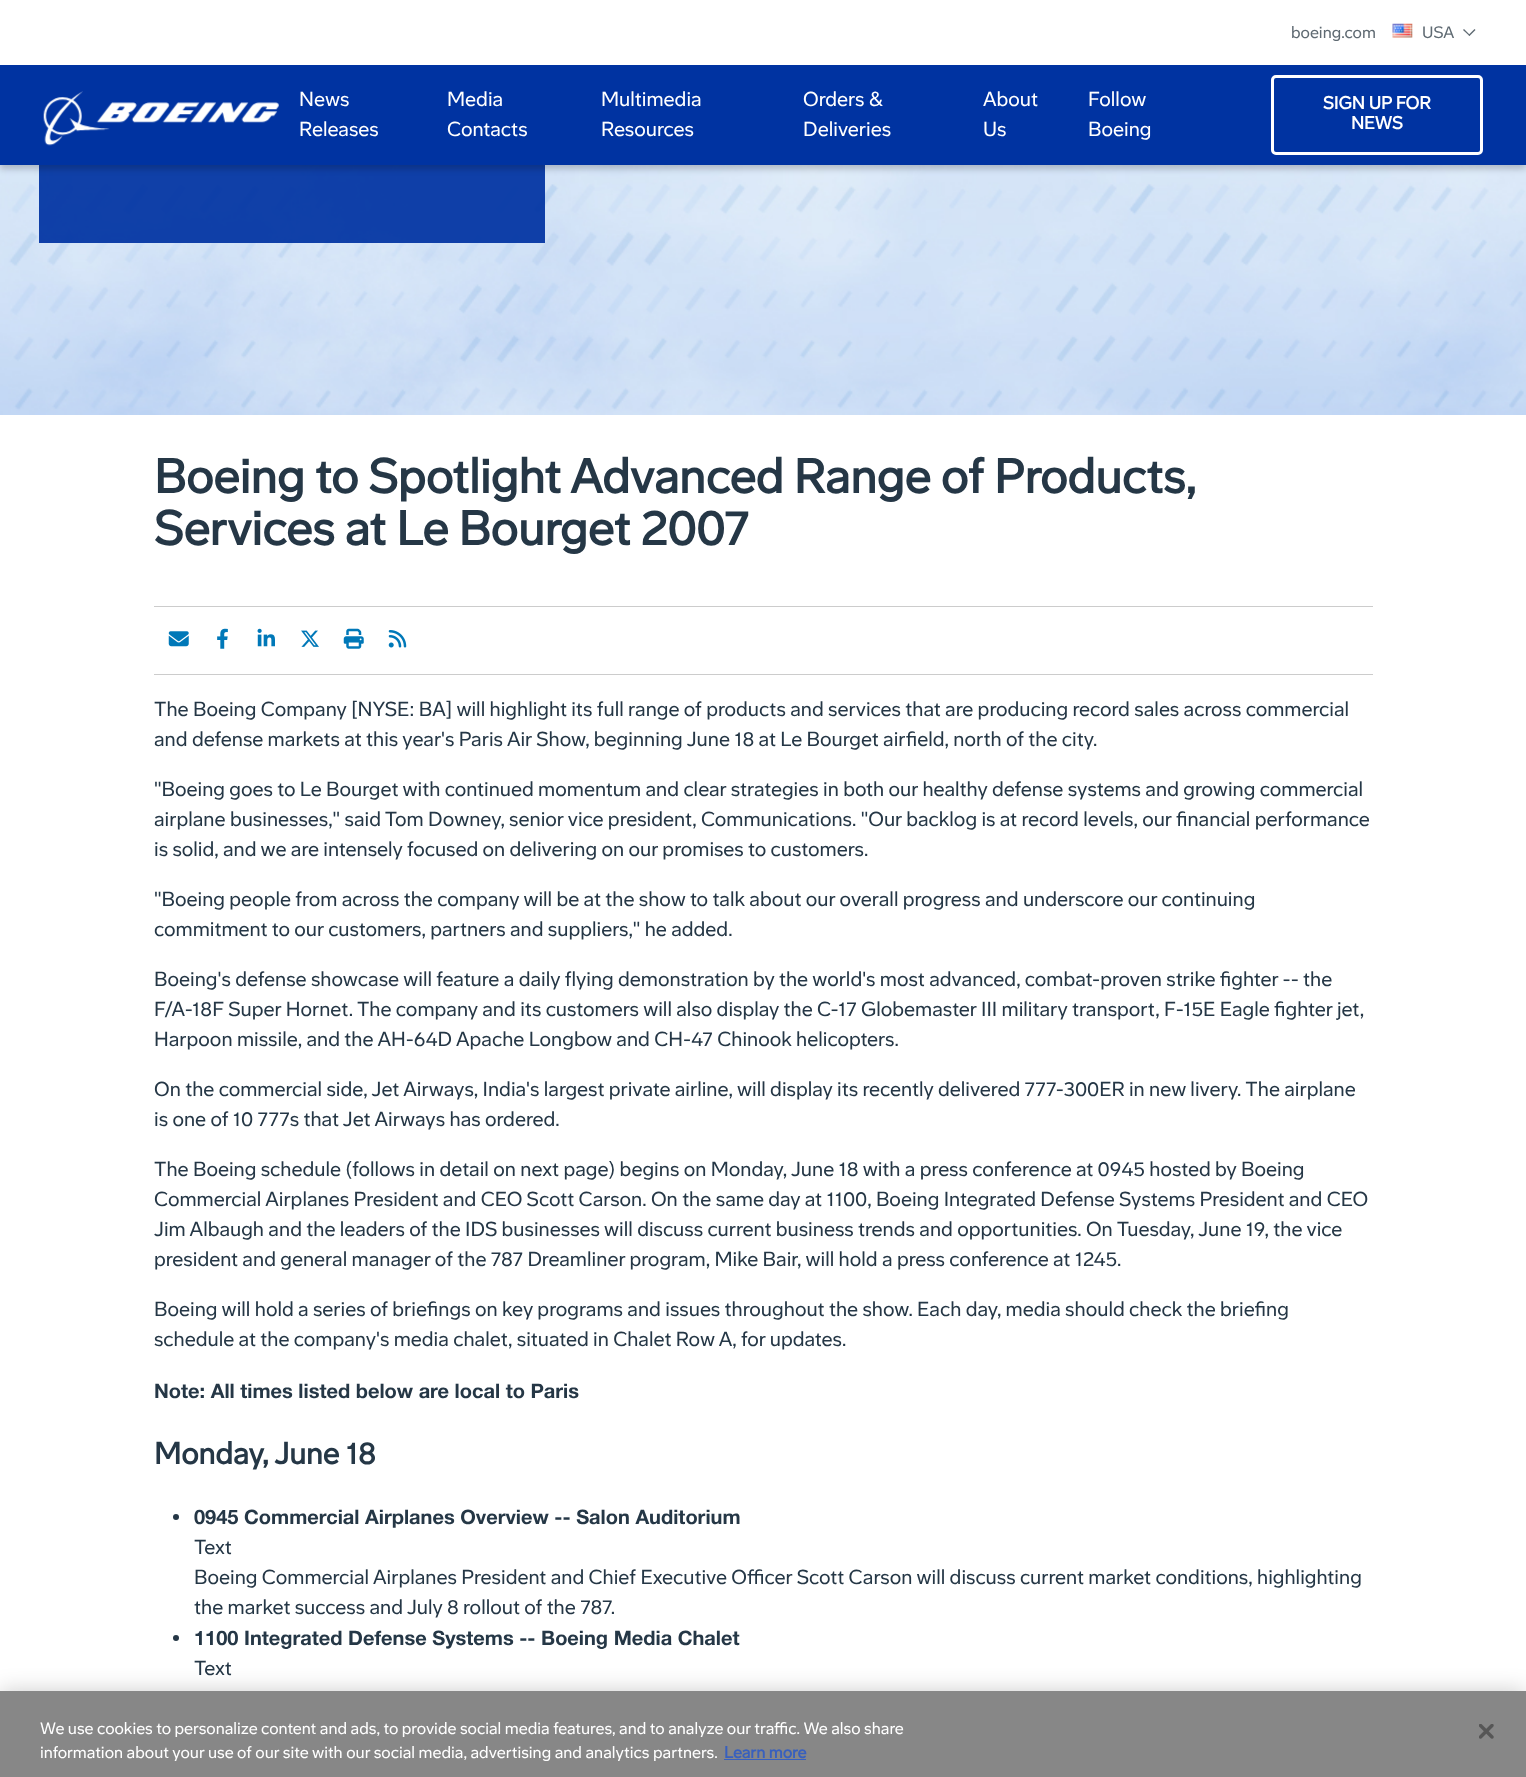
async function draw(canvas) {
  canvas.width = 1526;
  canvas.height = 1777;
  const ctx = canvas.getContext('2d');
  ctx.miterLimit = 4;
  ctx.fontKerning = 'normal';
  function label(s, x, y, font, color) {
    ctx.font = font;
    ctx.fillStyle = color;
    ctx.fillText(s, x, y);
  }
  function rect(x, y, w, h, color) {
    ctx.fillStyle = color;
    ctx.fillRect(x, y, w, h);
  }
  async function image(src, x, y, w, h) {
    const img = new Image();
    img.src = src;
    await img.decode();
    ctx.drawImage(img, x, y, w, h);
  }
  let path;

  rect(0, 0, 1526, 1777, '#fff');
  await image('assets/img3.png', 0, 165, 1526, 250);
  rect(39, 165, 506, 78, '#0033a1ed');
  ctx.fillStyle = '#00000033';
  ctx.filter = 'blur(3px)';
  ctx.beginPath();
  ctx.rect(0, 4, 1526, 165);
  ctx.fill();
  ctx.filter = 'none';
  rect(0, 0, 1526, 65, '#fff');
  label('boeing.com', 1291, 38, '16.25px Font', '#5f6a72');
  await image('assets/img1.png', 1392, 23, 21, 15);
  label('USA', 1422, 38, '16.25px Font', '#5f6a72');
  path = new Path2D('M1475.5 30L1469.5 36L1468.5 35L1474.5 29Z');
  ctx.fill(path);
  path = new Path2D('M1470 35L1469.5 36L1463 30L1464 29Z');
  ctx.fill(path);
  rect(0, 65, 1526, 100, '#0033a1');
  await image('assets/img2.png', 43, 91, 236, 55);
  label('News', 299, 106, '20px Font', '#fff');
  label('Releases', 299, 136, '20px Font', '#fff');
  label('Media', 447, 106, '20px Font', '#fff');
  label('Contacts', 447, 136, '20px Font', '#fff');
  label('Multimedia', 601, 106, '20px Font', '#fff');
  label('Resources', 601, 136, '20px Font', '#fff');
  label('Orders &', 803, 106, '20px Font', '#fff');
  label('Deliveries', 803, 136, '20px Font', '#fff');
  label('About', 983, 106, '20px Font', '#fff');
  label('Us', 983, 136, '20px Font', '#fff');
  label('Follow', 1088, 106, '20px Font', '#fff');
  label('Boeing', 1088, 136, '20px Font', '#fff');
  ctx.beginPath();
  ctx.roundRect(1272.5, 76.5, 209, 77, 3.5);
  ctx.strokeStyle = '#fff';
  ctx.lineWidth = 3;
  ctx.stroke();
  label('SIGN UP FOR', 1323, 109, 'bold 17.5px Font', '#fff');
  label('NEWS', 1351, 129, 'bold 17.5px Font', '#fff');
  label('Boeing to Spotlight Advanced Range of Products,', 154, 493, 'bold 47.5px Font', '#253746');
  label('Services at Le Bourget 2007', 154, 545, 'bold 47.5px Font', '#253746');
  rect(154, 606, 1219, 1, '#ccc');
  rect(154, 674, 1219, 1, '#ccc');
  await image('assets/img4.png', 168, 631, 21, 16);
  await image('assets/img5.png', 217, 628, 11, 21);
  await image('assets/img6.png', 257, 628, 18, 19);
  await image('assets/img7.png', 301, 630, 18, 17);
  await image('assets/img8.png', 343, 628, 21, 21);
  await image('assets/img9.png', 388, 630, 19, 18);
  label('The Boeing Company [NYSE: BA] will highlight its full range of products and services that are producing record sales across commercial', 154, 716, '20px Font', '#253746');
  label('and defense markets at this year\'s Paris Air Show, beginning June 18 at Le Bourget airfield, north of the city.', 154, 746, '20px Font', '#253746');
  label('"Boeing goes to Le Bourget with continued momentum and clear strategies in both our healthy defense systems and growing commercial', 154, 796, '20px Font', '#253746');
  label('airplane businesses," said Tom Downey, senior vice president, Communications. "Our backlog is at record levels, our financial performance', 154, 826, '20px Font', '#253746');
  label('is solid, and we are intensely focused on delivering on our promises to customers.', 154, 856, '20px Font', '#253746');
  label('"Boeing people from across the company will be at the show to talk about our overall progress and underscore our continuing', 154, 906, '20px Font', '#253746');
  label('commitment to our customers, partners and suppliers," he added.', 154, 936, '20px Font', '#253746');
  label('Boeing\'s defense showcase will feature a daily flying demonstration by the world\'s most advanced, combat-proven strike fighter -- the', 154, 986, '20px Font', '#253746');
  label('F/A-18F Super Hornet. The company and its customers will also display the C-17 Globemaster III military transport, F-15E Eagle fighter jet,', 154, 1016, '20px Font', '#253746');
  label('Harpoon missile, and the AH-64D Apache Longbow and CH-47 Chinook helicopters.', 154, 1046, '20px Font', '#253746');
  label('On the commercial side, Jet Airways, India\'s largest private airline, will display its recently delivered 777-300ER in new livery. The airplane', 154, 1096, '20px Font', '#253746');
  label('is one of 10 777s that Jet Airways has ordered.', 154, 1126, '20px Font', '#253746');
  label('The Boeing schedule (follows in detail on next page) begins on Monday, June 18 with a press conference at 0945 hosted by Boeing', 154, 1176, '20px Font', '#253746');
  label('Commercial Airplanes President and CEO Scott Carson. On the same day at 1100, Boeing Integrated Defense Systems President and CEO', 154, 1206, '20px Font', '#253746');
  label('Jim Albaugh and the leaders of the IDS businesses will discuss current business trends and opportunities. On Tuesday, June 19, the vice', 154, 1236, '20px Font', '#253746');
  label('president and general manager of the 787 Dreamliner program, Mike Bair, will hold a press conference at 1245.', 154, 1266, '20px Font', '#253746');
  label('Boeing will hold a series of briefings on key programs and issues throughout the show. Each day, media should check the briefing', 154, 1316, '20px Font', '#253746');
  label('schedule at the company\'s media chalet, situated in Chalet Row A, for updates.', 154, 1346, '20px Font', '#253746');
  label('Note: All times listed below are local to Paris', 154, 1398, 'bold 20px "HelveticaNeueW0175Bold"', '#253746');
  label('Monday, June 18', 154, 1464, 'bold 30px Font', '#253746');
  ctx.beginPath();
  ctx.arc(176, 1517, 3, 0, 2 * Math.PI);
  ctx.fill();
  label('0945 Commercial Airplanes Overview -- Salon Auditorium', 194, 1524, 'bold 20px "HelveticaNeueW0175Bold"', '#253746');
  label('Text', 194, 1554, '20px Font', '#253746');
  label('Boeing Commercial Airplanes President and Chief Executive Officer Scott Carson will discuss current market conditions, highlighting', 194, 1584, '20px Font', '#253746');
  label('the market success and July 8 rollout of the 787.', 194, 1614, '20px Font', '#253746');
  ctx.beginPath();
  ctx.arc(176, 1638, 3, 0, 2 * Math.PI);
  ctx.fill();
  label('1100 Integrated Defense Systems -- Boeing Media Chalet', 194, 1645, 'bold 20px "HelveticaNeueW0175Bold"', '#253746');
  label('Text', 194, 1675, '20px Font', '#253746');
  ctx.fillStyle = '#00000033';
  ctx.filter = 'blur(11px)';
  ctx.beginPath();
  ctx.rect(0, 1691, 1526, 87);
  ctx.fill();
  ctx.filter = 'none';
  rect(0, 1691, 1526, 86, '#878787');
  label('We use cookies to personalize content and ads, to provide social media features, and to analyze our traffic. We also share', 40, 1734, '16.25px Font', '#fff');
  label('information about your use of our site with our social media, advertising and analytics partners.', 40, 1758, '16.25px Font', '#fff');
  label('Learn more', 724, 1758, 'bold 16.25px Font', '#3860be');
  rect(724, 1759, 82, 1, '#3860be');
  await image('assets/img10.png', 1479, 1724, 15, 15);
}

draw(document.querySelector('canvas'));
